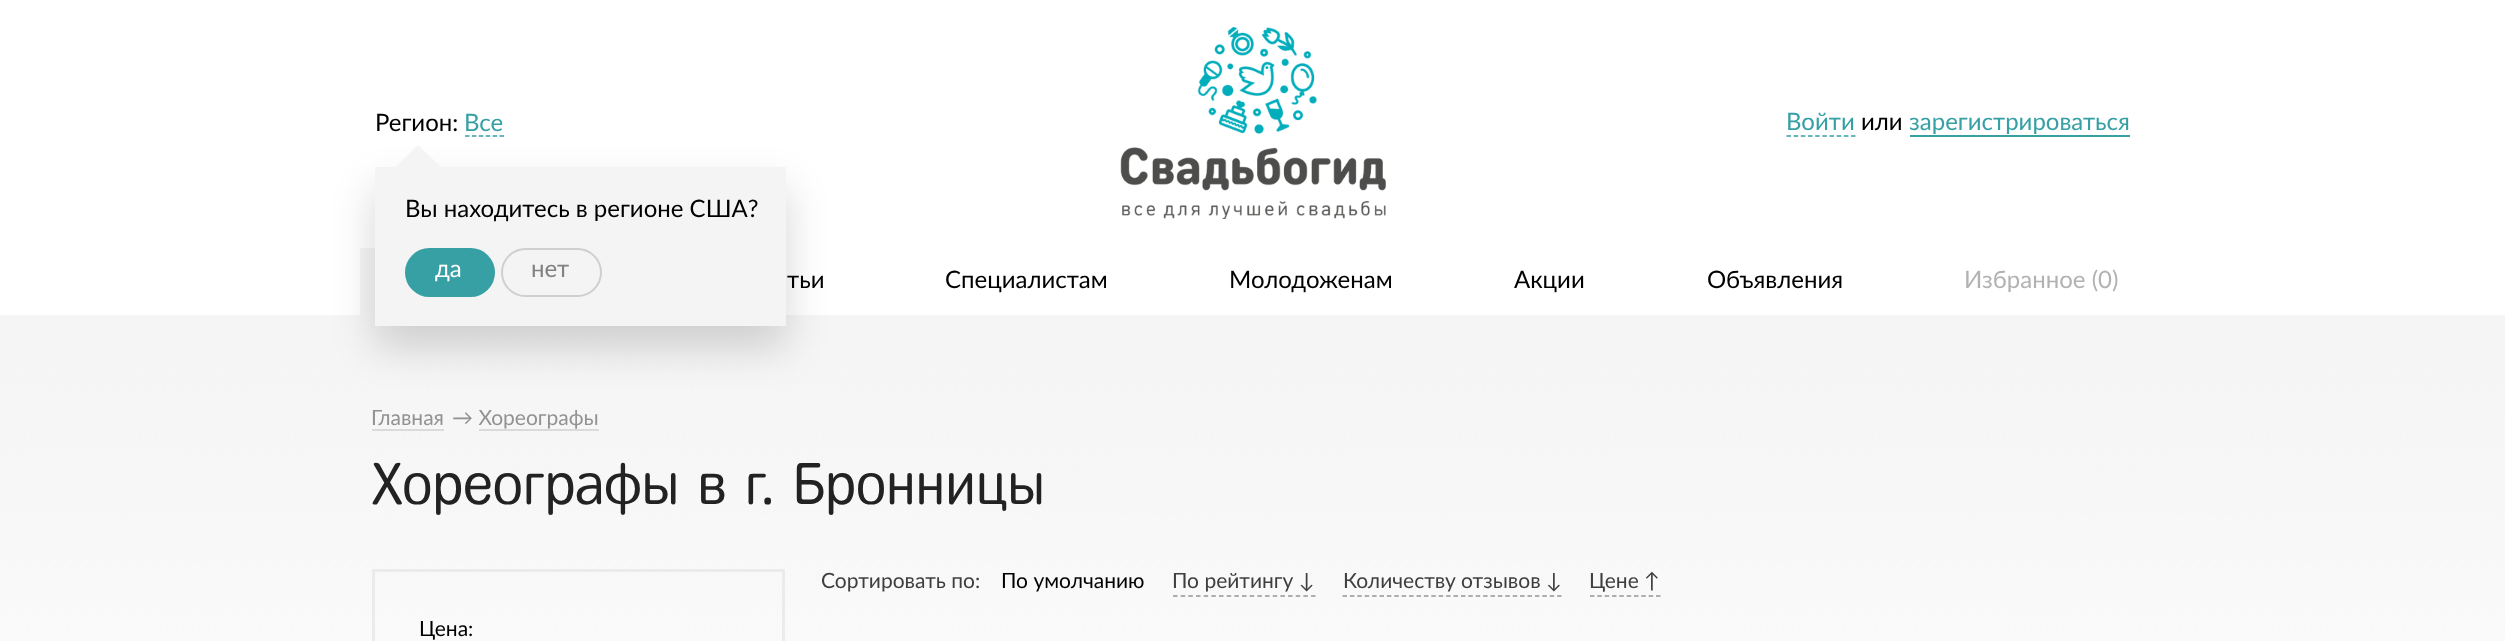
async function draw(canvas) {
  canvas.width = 2505;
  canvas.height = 641;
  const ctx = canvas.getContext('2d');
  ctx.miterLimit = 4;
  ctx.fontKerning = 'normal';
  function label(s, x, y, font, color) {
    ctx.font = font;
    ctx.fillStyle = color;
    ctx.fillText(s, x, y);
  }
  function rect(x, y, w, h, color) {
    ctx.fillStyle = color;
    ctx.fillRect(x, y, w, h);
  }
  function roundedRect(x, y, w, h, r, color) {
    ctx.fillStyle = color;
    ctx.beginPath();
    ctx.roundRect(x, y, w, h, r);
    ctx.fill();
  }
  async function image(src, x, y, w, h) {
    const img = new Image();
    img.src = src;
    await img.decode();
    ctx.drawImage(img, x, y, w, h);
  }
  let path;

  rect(0, 0, 2505, 641, '#fff');
  label('Регион:', 375, 131, '24px Lato', '#000');
  label('Все', 464, 131, '24px Lato', '#36a0a4');
  path = new Path2D('M465 136H504');
  ctx.strokeStyle = '#36a0a4';
  ctx.lineWidth = 1.5;
  ctx.setLineDash([4.5, 2.4]);
  ctx.stroke(path);
  rect(360, 248, 281, 67, '#f5f5f5');
  await image('assets/img2.png', 0, 315, 2505, 326);
  ctx.save();
  path = new Path2D('M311 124H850V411H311ZM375 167H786V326H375Z');
  ctx.clip(path, 'evenodd');
  ctx.fillStyle = '#00000029';
  ctx.filter = 'blur(21px)';
  ctx.beginPath();
  ctx.rect(375, 188, 411, 159);
  ctx.fill();
  ctx.filter = 'none';
  ctx.restore();
  rect(375, 167, 411, 159, '#f3f3f3f2');
  path = new Path2D('M418 145L440 166L418 187L397 166Z');
  ctx.fill(path);
  label('Вы находитесь в регионе США?', 405, 217, '24px Lato', '#000');
  roundedRect(405, 248, 90, 49, 24.5, '#36a0a4');
  label('да', 435, 277, '24px Lato', '#fff');
  ctx.beginPath();
  ctx.roundRect(502, 249, 99, 47, 23.5);
  ctx.strokeStyle = '#cfcfcf';
  ctx.lineWidth = 2;
  ctx.setLineDash([]);
  ctx.stroke();
  label('нет', 531, 277, '24px Lato', '#818181');
  await image('assets/img1.png', 1120, 27, 266, 192);
  label('Войти', 1786, 130, '24px Lato', '#36a0a4');
  path = new Path2D('M1786.5 136H1855.5');
  ctx.strokeStyle = '#36a0a4';
  ctx.lineWidth = 1.5;
  ctx.setLineDash([4.5, 2.67]);
  ctx.stroke(path);
  label('или', 1861, 130, '24px Lato', '#000');
  label('зарегистрироваться', 1909, 130, '24px Lato', '#36a0a4');
  rect(1910, 135, 220, 2, '#36a0a4');
  label('тьи', 787, 288, '24px Lato', '#000');
  label('Специалистам', 945, 288, '24px Lato', '#000');
  label('Молодоженам', 1229, 288, '24px Lato', '#000');
  label('Акции', 1514, 288, '24px Lato', '#000');
  label('Объявления', 1707, 288, '24px Lato', '#000');
  label('Избранное (0)', 1964, 288, '24px Lato', '#b2b2b2');
  label('Главная', 371, 425, '21px Lato', '#929292');
  rect(372, 429, 72, 2, '#dadada');
  label('→ Хореографы', 452, 425, '21px Lato', '#929292');
  rect(479, 429, 120, 2, '#dadada');
  label('Хореографы в г. Бронницы', 371, 504, '58.5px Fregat', '#222');
  label('Сортировать по:', 821, 588, '21px Lato', '#3e3e3e');
  label('По умолчанию', 1001, 588, '21px Lato', '#000');
  path = new Path2D('M1173 596H1315.5');
  ctx.strokeStyle = '#959595';
  ctx.setLineDash([4.5, 3.17]);
  ctx.stroke(path);
  label('По рейтингу ↓', 1172, 588, '21px Lato', '#3e3e3e');
  path = new Path2D('M1342.5 596H1561.5');
  ctx.setLineDash([4.5, 2.9]);
  ctx.stroke(path);
  label('Количеству отзывов ↓', 1343, 588, '21px Lato', '#3e3e3e');
  path = new Path2D('M1590 596H1660.5');
  ctx.setLineDash([4.5, 2.83]);
  ctx.stroke(path);
  label('Цене ↑', 1589, 588, '21px Lato', '#3e3e3e');
  ctx.strokeStyle = '#ebebeb';
  ctx.lineWidth = 3;
  ctx.setLineDash([]);
  ctx.strokeRect(373.5, 570.5, 410, 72);
  label('Цена:', 419, 636, '21px Lato', '#000');
}

draw(document.querySelector('canvas'));
